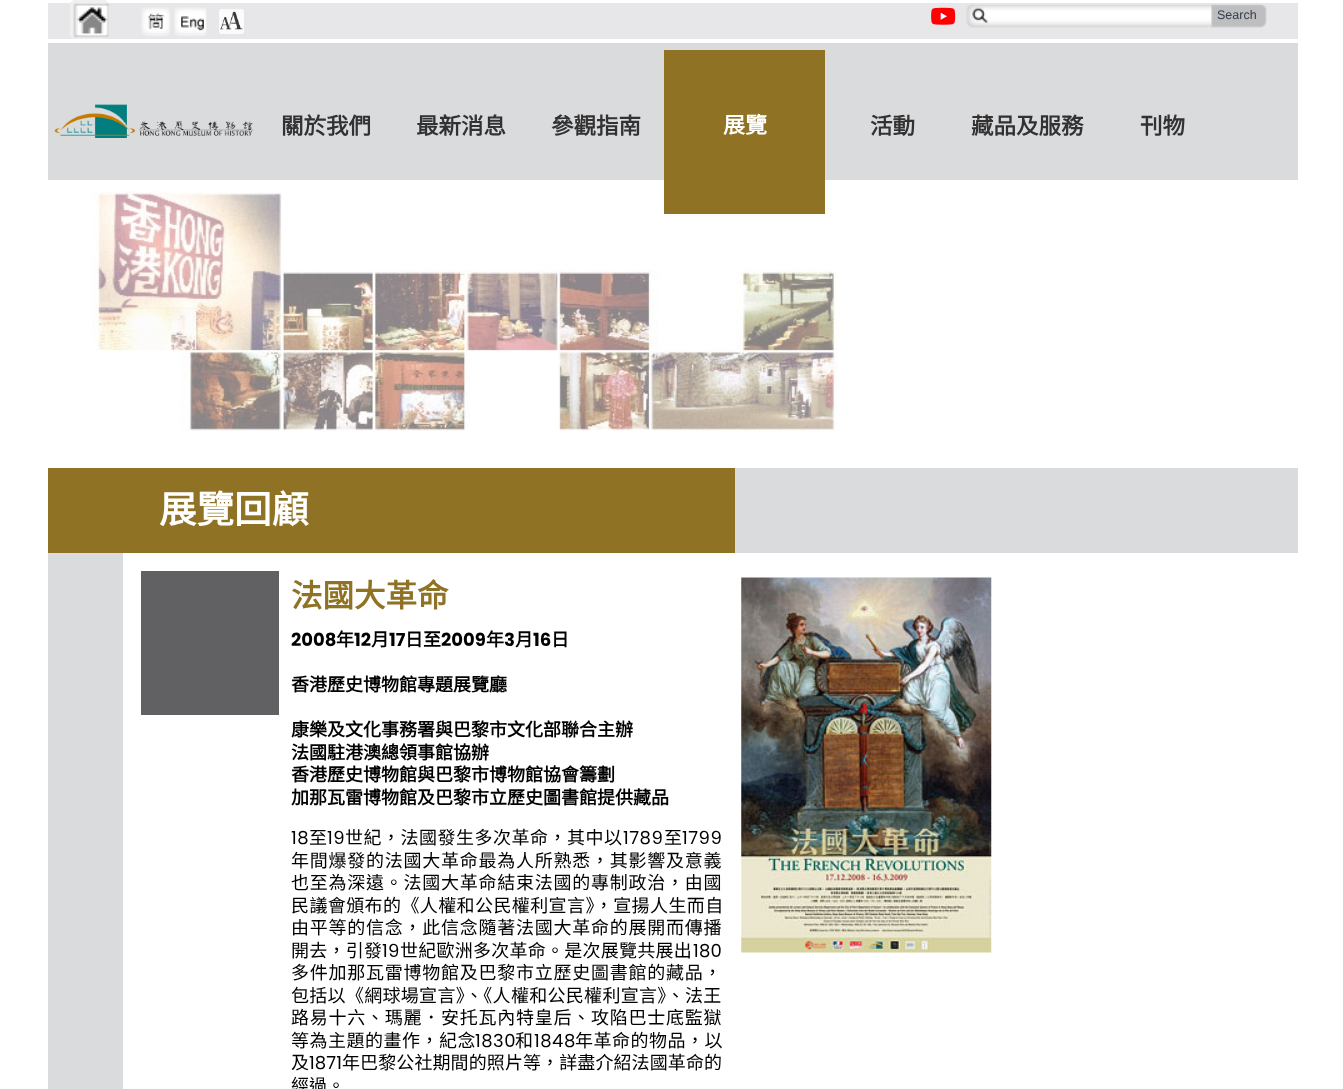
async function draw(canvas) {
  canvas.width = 1343;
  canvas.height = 1089;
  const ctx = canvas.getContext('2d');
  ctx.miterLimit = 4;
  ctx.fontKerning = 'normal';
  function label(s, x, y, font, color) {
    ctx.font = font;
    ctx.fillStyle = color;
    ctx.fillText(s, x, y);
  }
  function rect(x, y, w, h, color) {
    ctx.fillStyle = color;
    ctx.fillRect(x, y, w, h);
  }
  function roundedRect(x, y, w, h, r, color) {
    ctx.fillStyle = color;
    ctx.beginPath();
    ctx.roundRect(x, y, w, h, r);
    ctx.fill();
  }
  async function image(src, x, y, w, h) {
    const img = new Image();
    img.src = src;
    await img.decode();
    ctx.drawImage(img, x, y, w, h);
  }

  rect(0, 0, 1343, 1089, '#fff');
  rect(48, 3, 1250, 36, '#e7e7e9');
  await image('assets/img1.png', 70, 0, 39, 39);
  await image('assets/img2.png', 141, 7, 29, 29);
  await image('assets/img3.png', 174, 7, 33, 29);
  roundedRect(219, 9, 25, 25, 2.5, '#fafafa');
  await image('assets/img4.png', 220, 11, 23, 19);
  await image('assets/img5.png', 931, 7, 25, 18);
  await image('assets/img6.png', 966, 4, 242, 24);
  await image('assets/img7.png', 1207, 4, 60, 24);
  label('Search', 1217, 19, '12.5px Liberation Sans', '#34404f');
  rect(48, 43, 1250, 137, '#dadbdd');
  await image('assets/img8.png', 54, 104, 200, 34);
  await image('assets/img9.png', 92, 191, 745, 240);
  rect(48, 468, 687, 85, '#8f7224');
  label('展覽回顧', 159, 523, 'bold 37.5px Noto Sans CJK HK', '#fff');
  rect(735, 468, 563, 85, '#dadbdd');
  rect(48, 553, 75, 536, '#dadbdd');
  rect(141, 571, 138, 144, '#616163');
  label('法國大革命', 291, 607, 'bold 31.5px Noto Sans CJK HK', '#8f7224');
  label('2008', 291, 646, 'bold 18px Poppins', '#000');
  label('年', 336, 646, 'bold 18px Noto Sans CJK HK', '#000');
  label('12', 354, 646, 'bold 18px Poppins', '#000');
  label('月', 371, 646, 'bold 18px Noto Sans CJK HK', '#000');
  label('17', 389, 646, 'bold 18px Poppins', '#000');
  label('日至', 405, 646, 'bold 18px Noto Sans CJK HK', '#000');
  label('2009', 441, 646, 'bold 18px Poppins', '#000');
  label('年', 486, 646, 'bold 18px Noto Sans CJK HK', '#000');
  label('3', 504, 646, 'bold 18px Poppins', '#000');
  label('月', 515, 646, 'bold 18px Noto Sans CJK HK', '#000');
  label('16', 533, 646, 'bold 18px Poppins', '#000');
  label('日', 551, 646, 'bold 18px Noto Sans CJK HK', '#000');
  label('香港歷史博物館專題展覽廳', 291, 691, 'bold 18px Noto Sans CJK HK', '#000');
  label('康樂及文化事務署與巴黎市文化部聯合主辦', 291, 736, 'bold 18px Noto Sans CJK HK', '#000');
  label('法國駐港澳總領事館協辦', 291, 759, 'bold 18px Noto Sans CJK HK', '#000');
  label('香港歷史博物館與巴黎市博物館協會籌劃', 291, 781, 'bold 18px Noto Sans CJK HK', '#000');
  label('加那瓦雷博物館及巴黎市立歷史圖書館提供藏品', 291, 804, 'bold 18px Noto Sans CJK HK', '#000');
  ctx.letterSpacing = '0.5px';
  label('18', 291, 844, '18px Poppins', '#000');
  label('至', 309, 844, '18px Noto Sans CJK HK', '#000');
  label('19', 327, 844, '18px Poppins', '#000');
  label('世紀，法國發生多次革命，其中以', 345, 844, '18px Noto Sans CJK HK', '#000');
  label('1789', 623, 844, '18px Poppins', '#000');
  label('至', 664, 844, '18px Noto Sans CJK HK', '#000');
  label('1799', 682, 844, '18px Poppins', '#000');
  ctx.letterSpacing = '0.75px';
  label('年間爆發的法國大革命最為人所熟悉，其影響及意義', 291, 867, '18px Noto Sans CJK HK', '#000');
  label('也至為深遠。法國大革命結束法國的專制政治，由國', 291, 889, '18px Noto Sans CJK HK', '#000');
  ctx.letterSpacing = '0.4px';
  label('民議會頒布的《人權和公民權利宣言》，宣揚人生而自', 291, 912, '18px Noto Sans CJK HK', '#000');
  ctx.letterSpacing = '0.75px';
  label('由平等的信念，此信念隨著法國大革命的展開而傳播', 291, 934, '18px Noto Sans CJK HK', '#000');
  ctx.letterSpacing = '0.25px';
  label('開去，引發', 291, 957, '18px Noto Sans CJK HK', '#000');
  label('19', 382, 957, '18px Poppins', '#000');
  label('世紀歐洲多次革命。是次展覽共展出', 400, 957, '18px Noto Sans CJK HK', '#000');
  label('180', 693, 957, '18px Poppins', '#000');
  ctx.letterSpacing = '0.75px';
  label('多件加那瓦雷博物館及巴黎市立歷史圖書館的藏品，', 291, 979, '18px Noto Sans CJK HK', '#000');
  ctx.letterSpacing = '0.3px';
  label('包括以《網球場宣言》、《人權和公民權利宣言》、法王', 291, 1002, '18px Noto Sans CJK HK', '#000');
  ctx.letterSpacing = '0.75px';
  label('路易十六、瑪麗．安托瓦內特皇后、攻陷巴士底監獄', 291, 1024, '18px Noto Sans CJK HK', '#000');
  ctx.letterSpacing = '0.5px';
  label('等為主題的畫作，紀念', 291, 1047, '18px Noto Sans CJK HK', '#000');
  label('1830', 475, 1047, '18px Poppins', '#000');
  label('和', 515, 1047, '18px Noto Sans CJK HK', '#000');
  label('1848', 534, 1047, '18px Poppins', '#000');
  label('年革命的物品，以', 575, 1047, '18px Noto Sans CJK HK', '#000');
  ctx.letterSpacing = '0.1px';
  label('及', 291, 1069, '18px Noto Sans CJK HK', '#000');
  label('1871', 309, 1069, '18px Poppins', '#000');
  label('年巴黎公社期間的照片等，詳盡介紹法國革命的', 342, 1069, '18px Noto Sans CJK HK', '#000');
  ctx.letterSpacing = '0px';
  label('經過。', 291, 1092, '18px Noto Sans CJK HK', '#000');
  await image('assets/img10.png', 741, 577, 251, 376);
  label('關於我們', 281, 134, 'bold 22.5px Noto Sans CJK HK', '#323232');
  label('最新消息', 416, 134, 'bold 22.5px Noto Sans CJK HK', '#323232');
  label('參觀指南', 551, 134, 'bold 22.5px Noto Sans CJK HK', '#323232');
  rect(664, 50, 161, 164, '#8f7224');
  label('展覽', 723, 133, 'bold 22px Noto Sans CJK HK', '#fff');
  label('活動', 870, 134, 'bold 22.5px Noto Sans CJK HK', '#323232');
  label('藏品及服務', 971, 134, 'bold 22.5px Noto Sans CJK HK', '#323232');
  label('刊物', 1140, 134, 'bold 22.5px Noto Sans CJK HK', '#323232');
}

draw(document.querySelector('canvas'));
